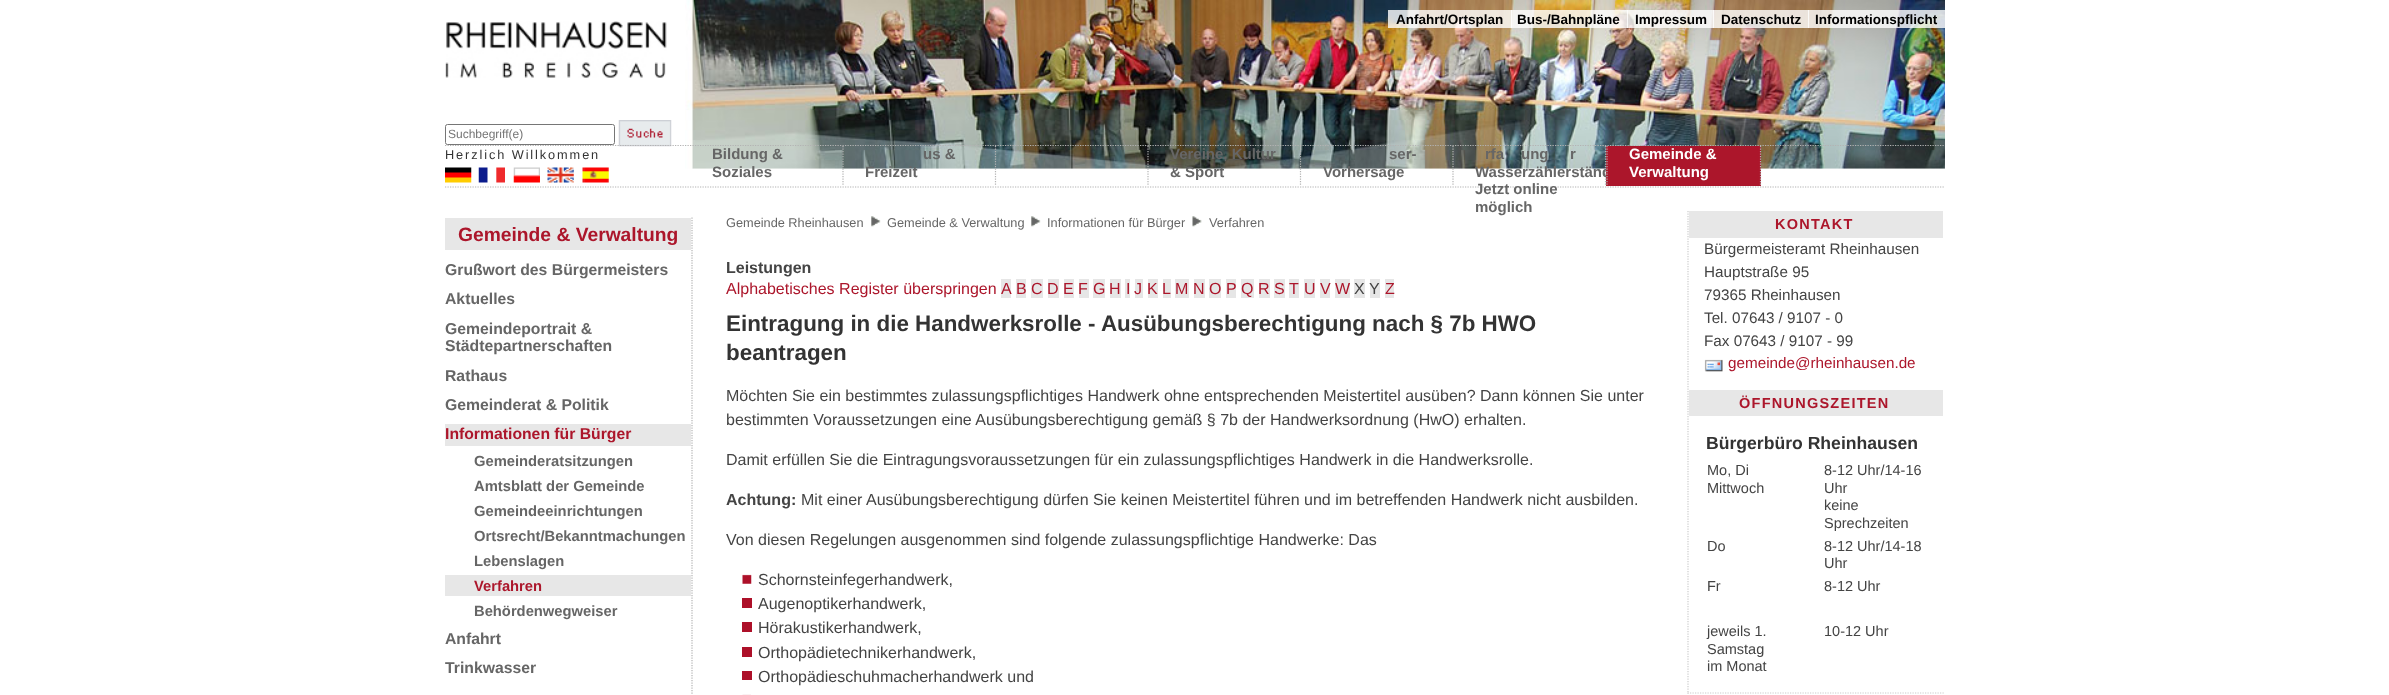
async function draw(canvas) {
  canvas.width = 2389;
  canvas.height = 695;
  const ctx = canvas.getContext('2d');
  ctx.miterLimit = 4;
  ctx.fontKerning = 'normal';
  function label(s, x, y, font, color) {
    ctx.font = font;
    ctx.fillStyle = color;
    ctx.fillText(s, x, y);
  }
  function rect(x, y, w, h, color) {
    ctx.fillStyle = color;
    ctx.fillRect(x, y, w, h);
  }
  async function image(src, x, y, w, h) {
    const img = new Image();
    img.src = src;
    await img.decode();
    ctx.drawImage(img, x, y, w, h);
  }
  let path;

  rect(0, 0, 2389, 695, '#fff');
  await image('assets/img1.png', 685, 0, 1260, 169);
  await image('assets/img2.png', 445, 21, 222, 57);
  rect(1388, 10, 124, 18, '#ffffffcc');
  label('Anfahrt/Ortsplan', 1396, 24, 'bold 13.5px Liberation Sans', '#000');
  rect(1511, 10, 117, 18, '#ffffffcc');
  label('Bus-/Bahnpläne', 1517, 24, 'bold 13.5px Liberation Sans', '#000');
  rect(1627, 10, 87, 18, '#ffffffcc');
  label('Impressum', 1635, 24, 'bold 13.5px Liberation Sans', '#000');
  rect(1713, 10, 96, 18, '#ffffffcc');
  label('Datenschutz', 1721, 24, 'bold 13.5px Liberation Sans', '#000');
  rect(1808, 10, 137, 18, '#ffffffcc');
  label('Informationspflicht', 1815, 24, 'bold 13.5px Liberation Sans', '#000');
  ctx.beginPath();
  ctx.roundRect(445.5, 124.5, 169, 20, 2);
  ctx.strokeStyle = '#767676';
  ctx.stroke();
  label('Suchbegriff(e)', 448, 138, '12px Liberation Sans', '#757575');
  await image('assets/img3.png', 618, 120, 54, 27);
  ctx.letterSpacing = '1.9px';
  label('Herzlich Willkommen', 445, 159, '12.75px Liberation Sans', '#333');
  await image('assets/img4.png', 445, 167, 27, 16);
  await image('assets/img5.png', 478, 167, 27, 16);
  await image('assets/img6.png', 513, 167, 27, 16);
  await image('assets/img7.png', 547, 167, 27, 16);
  await image('assets/img8.png', 582, 167, 27, 16);
  path = new Path2D('M445 145.5H1945');
  ctx.strokeStyle = '#b3b3b3';
  ctx.lineWidth = 1.2;
  ctx.setLineDash([1.25, 1.25]);
  ctx.stroke(path);
  path = new Path2D('M445 187H1945');
  ctx.stroke(path);
  path = new Path2D('M843 146V186');
  ctx.stroke(path);
  ctx.letterSpacing = '0px';
  label('Bildung &', 712, 159, 'bold 15px Liberation Sans', '#666');
  label('Soziales', 712, 177, 'bold 15px Liberation Sans', '#666');
  path = new Path2D('M995.5 146V186');
  ctx.stroke(path);
  label('us &', 923, 159, 'bold 15px Liberation Sans', '#666');
  label('Freizeit', 865, 177, 'bold 15px Liberation Sans', '#666');
  path = new Path2D('M1148 146V186');
  ctx.stroke(path);
  path = new Path2D('M1300.5 146V186');
  ctx.stroke(path);
  label('Vereine, Kultur', 1170, 159, 'bold 15px Liberation Sans', '#666');
  label('& Sport', 1170, 177, 'bold 15px Liberation Sans', '#666');
  path = new Path2D('M1453 146V186');
  ctx.stroke(path);
  label('ser-', 1389, 159, 'bold 15px Liberation Sans', '#666');
  label('Vorhersage', 1323, 177, 'bold 15px Liberation Sans', '#666');
  path = new Path2D('M1605.5 146V186');
  ctx.stroke(path);
  label('rfa', 1485, 159, 'bold 15px Liberation Sans', '#666');
  label('ung', 1521, 159, 'bold 15px Liberation Sans', '#666');
  label('r', 1570, 159, 'bold 15px Liberation Sans', '#666');
  label('Wasserzählerständ', 1475, 177, 'bold 15px Liberation Sans', '#666');
  label('Jetzt online', 1475, 194, 'bold 15px Liberation Sans', '#666');
  label('möglich', 1475, 212, 'bold 15px Liberation Sans', '#666');
  rect(1606, 146, 155, 40, '#ac162b');
  path = new Path2D('M1760.5 146V186');
  ctx.stroke(path);
  path = new Path2D('M1607 146V186');
  ctx.stroke(path);
  label('Gemeinde &', 1629, 159, 'bold 15px Liberation Sans', '#fff');
  label('Verwaltung', 1629, 177, 'bold 15px Liberation Sans', '#fff');
  path = new Path2D('M692 217.5V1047.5');
  ctx.stroke(path);
  rect(445, 218, 246, 32, '#e7e7e7');
  label('Gemeinde & Verwaltung', 458, 241, 'bold 19.25px Liberation Sans', '#ac162b');
  label('Grußwort des Bürgermeisters', 445, 275, 'bold 15.75px Liberation Sans', '#666');
  label('Aktuelles', 445, 304, 'bold 15.75px Liberation Sans', '#666');
  label('Gemeindeportrait &', 445, 334, 'bold 15.75px Liberation Sans', '#666');
  label('Städtepartnerschaften', 445, 351, 'bold 15.75px Liberation Sans', '#666');
  label('Rathaus', 445, 381, 'bold 15.75px Liberation Sans', '#666');
  label('Gemeinderat & Politik', 445, 410, 'bold 15.75px Liberation Sans', '#666');
  rect(445, 424, 246, 22, '#e7e7e7');
  label('Informationen für Bürger', 445, 439, 'bold 15.75px Liberation Sans', '#ac162b');
  label('Gemeinderatsitzungen', 474, 466, 'bold 14.75px Liberation Sans', '#666');
  label('Amtsblatt der Gemeinde', 474, 491, 'bold 14.75px Liberation Sans', '#666');
  label('Gemeindeeinrichtungen', 474, 516, 'bold 14.75px Liberation Sans', '#666');
  label('Ortsrecht/Bekanntmachungen', 474, 541, 'bold 14.75px Liberation Sans', '#666');
  label('Lebenslagen', 474, 566, 'bold 14.75px Liberation Sans', '#666');
  rect(445, 575, 246, 21, '#e7e7e7');
  label('Verfahren', 474, 591, 'bold 14.75px Liberation Sans', '#ac162b');
  label('Behördenwegweiser', 474, 616, 'bold 14.75px Liberation Sans', '#666');
  label('Anfahrt', 445, 644, 'bold 15.75px Liberation Sans', '#666');
  label('Trinkwasser', 445, 673, 'bold 15.75px Liberation Sans', '#666');
  label('Gemeinde Rheinhausen', 726, 227, '12.75px Liberation Sans', '#666');
  await image('assets/img9.png', 871, 216, 10, 11);
  label('Gemeinde & Verwaltung', 887, 227, '12.75px Liberation Sans', '#666');
  await image('assets/img10.png', 1031, 216, 10, 11);
  label('Informationen für Bürger', 1047, 227, '12.75px Liberation Sans', '#666');
  await image('assets/img11.png', 1192, 216, 10, 11);
  label('Verfahren', 1209, 227, '12.75px Liberation Sans', '#666');
  label('Leistungen', 726, 273, 'bold 16px Liberation Sans', '#444');
  label('Alphabetisches Register überspringen', 726, 294, '16.02px Liberation Sans', '#ac162b');
  rect(1001, 279, 10, 19, '#e6e6e6');
  label('A', 1001, 294, '16.02px Liberation Sans', '#ac162b');
  rect(1016, 279, 10, 19, '#e6e6e6');
  label('B', 1016, 294, '16.02px Liberation Sans', '#ac162b');
  rect(1031, 279, 12, 19, '#e6e6e6');
  label('C', 1031, 294, '16.02px Liberation Sans', '#ac162b');
  rect(1048, 279, 11, 19, '#e6e6e6');
  label('D', 1047, 294, '16.02px Liberation Sans', '#ac162b');
  rect(1064, 279, 10, 19, '#e6e6e6');
  label('E', 1063, 294, '16.02px Liberation Sans', '#ac162b');
  rect(1079, 279, 10, 19, '#e6e6e6');
  label('F', 1078, 294, '16.02px Liberation Sans', '#ac162b');
  rect(1093, 279, 12, 19, '#e6e6e6');
  label('G', 1093, 294, '16.02px Liberation Sans', '#ac162b');
  rect(1110, 279, 11, 19, '#e6e6e6');
  label('H', 1109, 294, '16.02px Liberation Sans', '#ac162b');
  rect(1125, 279, 5, 19, '#e6e6e6');
  label('I', 1126, 294, '16.02px Liberation Sans', '#ac162b');
  rect(1135, 279, 8, 19, '#e6e6e6');
  label('J', 1134, 294, '16.02px Liberation Sans', '#ac162b');
  rect(1148, 279, 10, 19, '#e6e6e6');
  label('K', 1147, 294, '16.02px Liberation Sans', '#ac162b');
  rect(1163, 279, 8, 19, '#e6e6e6');
  label('L', 1162, 294, '16.02px Liberation Sans', '#ac162b');
  rect(1175, 279, 14, 19, '#e6e6e6');
  label('M', 1175, 294, '16.02px Liberation Sans', '#ac162b');
  rect(1194, 279, 11, 19, '#e6e6e6');
  label('N', 1193, 294, '16.02px Liberation Sans', '#ac162b');
  rect(1209, 279, 12, 19, '#e6e6e6');
  label('O', 1209, 294, '16.02px Liberation Sans', '#ac162b');
  rect(1226, 279, 10, 19, '#e6e6e6');
  label('P', 1226, 294, '16.02px Liberation Sans', '#ac162b');
  rect(1241, 279, 13, 19, '#e6e6e6');
  label('Q', 1241, 294, '16.02px Liberation Sans', '#ac162b');
  rect(1259, 279, 11, 19, '#e6e6e6');
  label('R', 1258, 294, '16.02px Liberation Sans', '#ac162b');
  rect(1274, 279, 11, 19, '#e6e6e6');
  label('S', 1274, 294, '16.02px Liberation Sans', '#ac162b');
  rect(1289, 279, 10, 19, '#e6e6e6');
  label('T', 1289, 294, '16.02px Liberation Sans', '#ac162b');
  rect(1304, 279, 11, 19, '#e6e6e6');
  label('U', 1304, 294, '16.02px Liberation Sans', '#ac162b');
  rect(1320, 279, 10, 19, '#e6e6e6');
  label('V', 1320, 294, '16.02px Liberation Sans', '#ac162b');
  rect(1335, 279, 15, 19, '#e6e6e6');
  label('W', 1335, 294, '16.02px Liberation Sans', '#ac162b');
  rect(1354, 279, 11, 19, '#e6e6e6');
  label('X', 1354, 294, '16.02px Liberation Sans', '#444');
  rect(1370, 279, 10, 19, '#e6e6e6');
  label('Y', 1369, 294, '16.02px Liberation Sans', '#444');
  rect(1385, 279, 9, 19, '#e6e6e6');
  label('Z', 1385, 294, '16.02px Liberation Sans', '#ac162b');
  label('Eintragung in die Handwerksrolle - Ausübungsberechtigung nach § 7b HWO', 726, 331, 'bold 22.4px Liberation Sans', '#333');
  label('beantragen', 726, 360, 'bold 22.4px Liberation Sans', '#333');
  label('Möchten Sie ein bestimmtes zulassungspflichtiges Handwerk ohne entsprechenden Meistertitel ausüben? Dann können Sie unter', 726, 401, '16.02px Liberation Sans', '#444');
  label('bestimmten Voraussetzungen eine Ausübungsberechtigung gemäß § 7b der Handwerksordnung (HwO) erhalten.', 726, 425, '16.02px Liberation Sans', '#444');
  label('Damit erfüllen Sie die Eintragungsvoraussetzungen für ein zulassungspflichtiges Handwerk in die Handwerksrolle.', 726, 465, '16.02px Liberation Sans', '#444');
  label('Achtung:', 726, 505, 'bold 16.02px Liberation Sans', '#444');
  label('Mit einer Ausübungsberechtigung dürfen Sie keinen Meistertitel führen und im betreffenden Handwerk nicht ausbilden.', 801, 505, '16.02px Liberation Sans', '#444');
  label('Von diesen Regelungen ausgenommen sind folgende zulassungspflichtige Handwerke: Das', 726, 545, '16.02px Liberation Sans', '#444');
  await image('assets/img12.png', 742, 574, 10, 10);
  label('Schornsteinfegerhandwerk,', 758, 585, '16.02px Liberation Sans', '#444');
  rect(742, 598, 10, 10, '#ad1029');
  label('Augenoptikerhandwerk,', 758, 609, '16.02px Liberation Sans', '#444');
  rect(742, 622, 10, 10, '#ad1029');
  label('Hörakustikerhandwerk,', 758, 633, '16.02px Liberation Sans', '#444');
  rect(742, 647, 10, 10, '#ad1029');
  label('Orthopädietechnikerhandwerk,', 758, 658, '16.02px Liberation Sans', '#444');
  rect(742, 671, 10, 9, '#ad1029');
  label('Orthopädieschuhmacherhandwerk und', 758, 682, '16.02px Liberation Sans', '#444');
  await image('assets/img13.png', 742, 694, 9, 1);
  path = new Path2D('M1687.5 693H1945');
  ctx.strokeStyle = '#ccc';
  ctx.stroke(path);
  path = new Path2D('M1688 211V694');
  ctx.stroke(path);
  rect(1689, 211, 254, 27, '#e7e7e7');
  ctx.letterSpacing = '1.25px';
  label('KONTAKT', 1775, 229, 'bold 14.5px Liberation Sans', '#ac162b');
  ctx.letterSpacing = '0px';
  label('Bürgermeisteramt Rheinhausen', 1704, 254, '15.25px Liberation Sans', '#444');
  label('Hauptstraße 95', 1704, 277, '15.25px Liberation Sans', '#444');
  label('79365 Rheinhausen', 1704, 300, '15.25px Liberation Sans', '#444');
  label('Tel. 07643 / 9107 - 0', 1704, 323, '15.25px Liberation Sans', '#444');
  label('Fax 07643 / 9107 - 99', 1704, 346, '15.25px Liberation Sans', '#444');
  await image('assets/img14.png', 1704, 359, 19, 13);
  label('gemeinde@rheinhausen.de', 1728, 368, '15.25px Liberation Sans', '#ac162b');
  rect(1689, 390, 254, 26, '#e7e7e7');
  ctx.letterSpacing = '1.25px';
  label('ÖFFNUNGSZEITEN', 1739, 408, 'bold 14.5px Liberation Sans', '#ac162b');
  ctx.letterSpacing = '0px';
  label('Bürgerbüro Rheinhausen', 1706, 449, 'bold 17.6px Liberation Sans', '#333');
  label('Mo, Di', 1707, 475, '14.5px Liberation Sans', '#444');
  label('Mittwoch', 1707, 493, '14.5px Liberation Sans', '#444');
  label('8-12 Uhr/14-16', 1824, 475, '14.5px Liberation Sans', '#444');
  label('Uhr', 1824, 493, '14.5px Liberation Sans', '#444');
  label('keine', 1824, 510, '14.5px Liberation Sans', '#444');
  label('Sprechzeiten', 1824, 528, '14.5px Liberation Sans', '#444');
  label('Do', 1707, 551, '14.5px Liberation Sans', '#444');
  label('8-12 Uhr/14-18', 1824, 551, '14.5px Liberation Sans', '#444');
  label('Uhr', 1824, 568, '14.5px Liberation Sans', '#444');
  label('Fr', 1707, 591, '14.5px Liberation Sans', '#444');
  label('8-12 Uhr', 1824, 591, '14.5px Liberation Sans', '#444');
  label('jeweils 1.', 1707, 636, '14.5px Liberation Sans', '#444');
  label('Samstag', 1707, 654, '14.5px Liberation Sans', '#444');
  label('im Monat', 1707, 671, '14.5px Liberation Sans', '#444');
  label('10-12 Uhr', 1824, 636, '14.5px Liberation Sans', '#444');
}

draw(document.querySelector('canvas'));
